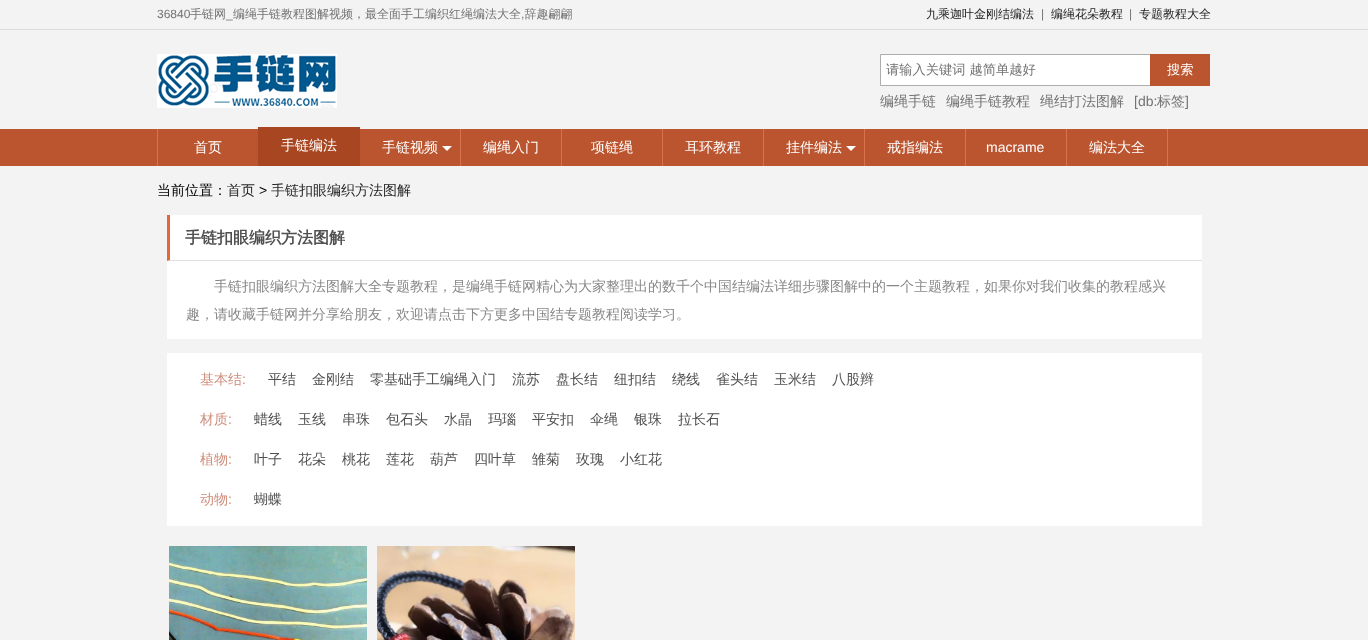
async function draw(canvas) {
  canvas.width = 1368;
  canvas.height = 640;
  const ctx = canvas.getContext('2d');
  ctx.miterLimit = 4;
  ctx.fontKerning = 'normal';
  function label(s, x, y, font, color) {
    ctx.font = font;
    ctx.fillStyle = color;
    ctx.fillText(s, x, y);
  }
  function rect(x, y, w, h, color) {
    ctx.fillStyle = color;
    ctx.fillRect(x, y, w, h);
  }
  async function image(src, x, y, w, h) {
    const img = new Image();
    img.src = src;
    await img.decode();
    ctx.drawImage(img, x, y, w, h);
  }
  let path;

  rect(0, 0, 1368, 640, '#f3f3f3');
  rect(0, 29, 1368, 1, '#dcdcdc');
  label('36840', 157, 18, '12px Liberation Sans', '#737373');
  label('手链网', 190, 18, '500 12px WenQuanYi Zen Hei', '#737373');
  label('_', 226, 18, '12px Liberation Sans', '#737373');
  label('编绳手链教程图解视频，最全面手工编织红绳编法大全 辞趣翩翩', 233, 18, '500 12px WenQuanYi Zen Hei', '#737373');
  label('九乘迦叶金刚结编法', 926, 18, '500 12px WenQuanYi Zen Hei', '#252525');
  label('|', 1041, 18, '12px Liberation Sans', '#737373');
  label('编绳花朵教程', 1051, 18, '500 12px WenQuanYi Zen Hei', '#252525');
  label('|', 1129, 18, '12px Liberation Sans', '#737373');
  label('专题教程大全', 1139, 18, '500 12px WenQuanYi Zen Hei', '#252525');
  label(',', 521, 18, '12px Liberation Sans', '#737373');
  await image('assets/img1.png', 157, 54, 180, 54);
  ctx.fillStyle = '#fff';
  ctx.beginPath();
  ctx.rect(880.5, 54.5, 270, 31);
  ctx.fill();
  ctx.strokeStyle = '#adadad';
  ctx.stroke();
  label('请输入关键词 越简单越好', 886, 74, '500 13.25px WenQuanYi Zen Hei', '#737373');
  rect(1150, 54, 60, 32, '#bb552f');
  label('搜索', 1167, 74, '500 13.25px WenQuanYi Zen Hei', '#fff');
  label('编绳手链', 880, 106, '500 14px WenQuanYi Zen Hei', '#737373');
  label('编绳手链教程', 946, 106, '500 14px WenQuanYi Zen Hei', '#737373');
  label('绳结打法图解', 1040, 106, '500 14px WenQuanYi Zen Hei', '#737373');
  label('[db:', 1134, 106, '14px Liberation Sans', '#737373');
  label('标签', 1157, 106, '500 14px WenQuanYi Zen Hei', '#737373');
  label(']', 1185, 106, '14px Liberation Sans', '#737373');
  rect(0, 129, 1368, 37, '#bb552f');
  rect(157, 129, 1, 37, '#d6724d');
  label('首页', 194, 152, '500 14px WenQuanYi Zen Hei', '#fff');
  rect(258, 127, 102, 39, '#a84621');
  label('手链编法', 281, 150, '500 14px WenQuanYi Zen Hei', '#fff');
  rect(460, 129, 1, 37, '#d6724d');
  label('手链视频', 382, 152, '500 14px WenQuanYi Zen Hei', '#fff');
  await image('assets/img2.png', 442, 146, 10, 5);
  rect(561, 129, 1, 37, '#d6724d');
  label('编绳入门', 483, 152, '500 14px WenQuanYi Zen Hei', '#fff');
  rect(662, 129, 1, 37, '#d6724d');
  label('项链绳', 591, 152, '500 14px WenQuanYi Zen Hei', '#fff');
  rect(763, 129, 1, 37, '#d6724d');
  label('耳环教程', 685, 152, '500 14px WenQuanYi Zen Hei', '#fff');
  rect(864, 129, 1, 37, '#d6724d');
  label('挂件编法', 786, 152, '500 14px WenQuanYi Zen Hei', '#fff');
  await image('assets/img2.png', 846, 146, 10, 5);
  rect(965, 129, 1, 37, '#d6724d');
  label('戒指编法', 887, 152, '500 14px WenQuanYi Zen Hei', '#fff');
  rect(1066, 129, 1, 37, '#d6724d');
  label('macrame', 986, 152, '14px Liberation Sans', '#fff');
  rect(1167, 129, 1, 37, '#d6724d');
  label('编法大全', 1089, 152, '500 14px WenQuanYi Zen Hei', '#fff');
  label('当前位置：', 157, 195, '500 14px WenQuanYi Zen Hei', '#000');
  label('首页', 227, 195, '500 14px WenQuanYi Zen Hei', '#252525');
  label('>', 259, 195, '14px Liberation Sans', '#000');
  label('手链扣眼编织方法图解', 271, 195, '500 14px WenQuanYi Zen Hei', '#252525');
  rect(167, 215, 1035, 124, '#fff');
  ctx.fillStyle = '#e0e0e0';
  path = new Path2D('M1202 261H167L170 260H1202Z');
  ctx.fill(path);
  ctx.fillStyle = '#e36739';
  path = new Path2D('M167 261V215H170V260Z');
  ctx.fill(path);
  label('手链扣眼编织方法图解', 185, 243, 'bold 16px WenQuanYi Zen Hei', '#505050');
  label('手链扣眼编织方法图解大全专题教程，是编绳手链网精心为大家整理出的数千个中国结编法详细步骤图解中的一个主题教程，如果你对我们收集的教程感兴', 214, 291, '500 14px WenQuanYi Zen Hei', '#888');
  label('趣，请收藏手链网并分享给朋友，欢迎请点击下方更多中国结专题教程阅读学习。', 186, 319, '500 14px WenQuanYi Zen Hei', '#888');
  rect(167, 353, 1035, 173, '#fff');
  label('基本结', 200, 384, '500 14px WenQuanYi Zen Hei', '#ce8e7c');
  label(':', 242, 384, '14px Liberation Sans', '#ce8e7c');
  label('平结', 268, 384, '500 14px WenQuanYi Zen Hei', '#505050');
  label('金刚结', 312, 384, '500 14px WenQuanYi Zen Hei', '#505050');
  label('零基础手工编绳入门', 370, 384, '500 14px WenQuanYi Zen Hei', '#505050');
  label('流苏', 512, 384, '500 14px WenQuanYi Zen Hei', '#505050');
  label('盘长结', 556, 384, '500 14px WenQuanYi Zen Hei', '#505050');
  label('纽扣结', 614, 384, '500 14px WenQuanYi Zen Hei', '#505050');
  label('绕线', 672, 384, '500 14px WenQuanYi Zen Hei', '#505050');
  label('雀头结', 716, 384, '500 14px WenQuanYi Zen Hei', '#505050');
  label('玉米结', 774, 384, '500 14px WenQuanYi Zen Hei', '#505050');
  label('八股辫', 832, 384, '500 14px WenQuanYi Zen Hei', '#505050');
  label('材质', 200, 424, '500 14px WenQuanYi Zen Hei', '#ce8e7c');
  label(':', 228, 424, '14px Liberation Sans', '#ce8e7c');
  label('蜡线', 254, 424, '500 14px WenQuanYi Zen Hei', '#505050');
  label('玉线', 298, 424, '500 14px WenQuanYi Zen Hei', '#505050');
  label('串珠', 342, 424, '500 14px WenQuanYi Zen Hei', '#505050');
  label('包石头', 386, 424, '500 14px WenQuanYi Zen Hei', '#505050');
  label('水晶', 444, 424, '500 14px WenQuanYi Zen Hei', '#505050');
  label('玛瑙', 488, 424, '500 14px WenQuanYi Zen Hei', '#505050');
  label('平安扣', 532, 424, '500 14px WenQuanYi Zen Hei', '#505050');
  label('伞绳', 590, 424, '500 14px WenQuanYi Zen Hei', '#505050');
  label('银珠', 634, 424, '500 14px WenQuanYi Zen Hei', '#505050');
  label('拉长石', 678, 424, '500 14px WenQuanYi Zen Hei', '#505050');
  label('植物', 200, 464, '500 14px WenQuanYi Zen Hei', '#ce8e7c');
  label(':', 228, 464, '14px Liberation Sans', '#ce8e7c');
  label('叶子', 254, 464, '500 14px WenQuanYi Zen Hei', '#505050');
  label('花朵', 298, 464, '500 14px WenQuanYi Zen Hei', '#505050');
  label('桃花', 342, 464, '500 14px WenQuanYi Zen Hei', '#505050');
  label('莲花', 386, 464, '500 14px WenQuanYi Zen Hei', '#505050');
  label('葫芦', 430, 464, '500 14px WenQuanYi Zen Hei', '#505050');
  label('四叶草', 474, 464, '500 14px WenQuanYi Zen Hei', '#505050');
  label('雏菊', 532, 464, '500 14px WenQuanYi Zen Hei', '#505050');
  label('玫瑰', 576, 464, '500 14px WenQuanYi Zen Hei', '#505050');
  label('小红花', 620, 464, '500 14px WenQuanYi Zen Hei', '#505050');
  label('动物', 200, 504, '500 14px WenQuanYi Zen Hei', '#ce8e7c');
  label(':', 228, 504, '14px Liberation Sans', '#ce8e7c');
  label('蝴蝶', 254, 504, '500 14px WenQuanYi Zen Hei', '#505050');
  await image('assets/img3.png', 169, 546, 198, 94);
  await image('assets/img4.png', 377, 546, 198, 94);
}

draw(document.querySelector('canvas'));
